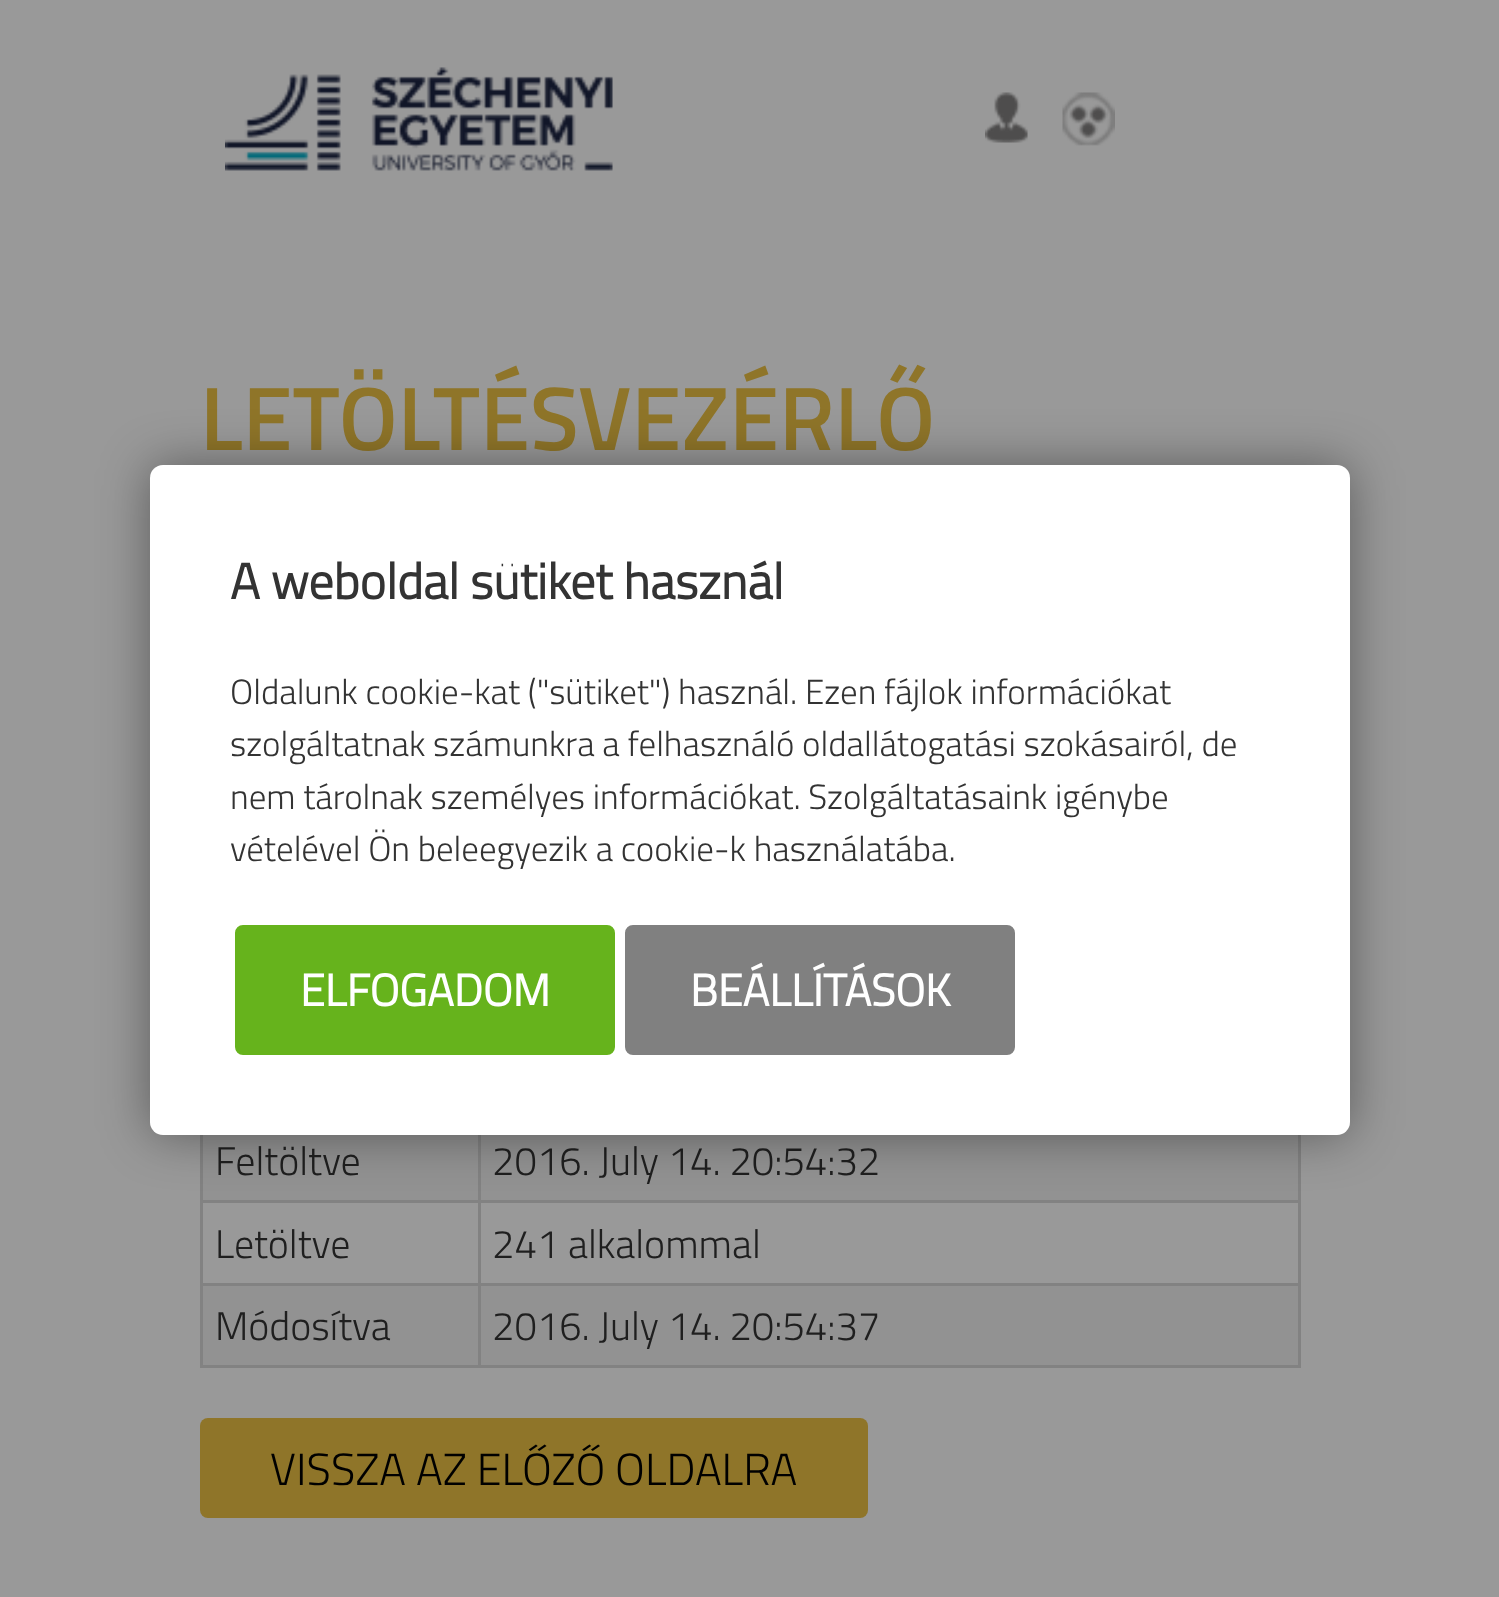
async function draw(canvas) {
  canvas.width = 1499;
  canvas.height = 1597;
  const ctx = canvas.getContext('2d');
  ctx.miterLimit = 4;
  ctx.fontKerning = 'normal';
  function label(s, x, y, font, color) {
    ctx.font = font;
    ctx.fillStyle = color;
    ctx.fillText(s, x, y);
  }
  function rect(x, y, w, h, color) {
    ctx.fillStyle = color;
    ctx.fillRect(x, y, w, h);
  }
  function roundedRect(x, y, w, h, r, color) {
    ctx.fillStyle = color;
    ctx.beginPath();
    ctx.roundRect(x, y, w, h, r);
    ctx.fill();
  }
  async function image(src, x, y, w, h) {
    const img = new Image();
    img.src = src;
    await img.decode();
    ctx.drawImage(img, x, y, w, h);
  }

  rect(0, 0, 1499, 1597, '#999');
  await image('assets/img1.png', 225, 67, 388, 104);
  await image('assets/img2.png', 985, 92, 43, 51);
  await image('assets/img3.png', 1062, 92, 53, 54);
  label('LETÖLTÉSVEZÉRLŐ', 200, 450, '600 90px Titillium', '#8f7529');
  rect(203, 1135, 275, 65, '#929292');
  label('Feltöltve', 215, 1175, '300 40px Titillium', '#1f1f1f');
  rect(481, 1135, 817, 65, '#929292');
  rect(478, 1200, 822, 3, '#828282');
  rect(478, 1283, 822, 3, '#828282');
  rect(1298, 1283, 3, 85, '#828282');
  rect(478, 1365, 822, 3, '#828282');
  rect(478, 1283, 3, 85, '#828282');
  rect(200, 1283, 280, 3, '#828282');
  rect(478, 1200, 3, 85, '#828282');
  rect(200, 1200, 280, 3, '#828282');
  rect(478, 1135, 3, 68, '#828282');
  label('2016. July 14. 20:54:32', 492, 1175, '300 40px Titillium', '#1f1f1f');
  rect(200, 1365, 280, 3, '#828282');
  rect(200, 1283, 3, 85, '#828282');
  rect(200, 1135, 3, 150, '#828282');
  label('Letöltve', 215, 1258, '300 40px Titillium', '#1f1f1f');
  rect(1298, 1135, 3, 150, '#828282');
  label('241 alkalommal', 492, 1258, '300 40px Titillium', '#1f1f1f');
  rect(203, 1286, 275, 79, '#929292');
  label('Módosítva', 215, 1340, '300 40px Titillium', '#1f1f1f');
  rect(481, 1286, 817, 79, '#929292');
  label('2016. July 14. 20:54:37', 492, 1340, '300 40px Titillium', '#1f1f1f');
  roundedRect(200, 1418, 668, 100, 8, '#8f7529');
  label('VISSZA AZ ELŐZŐ OLDALRA', 270, 1485, '300 45px Titillium', '#000');
  ctx.fillStyle = '#00000066';
  ctx.filter = 'blur(25px)';
  ctx.beginPath();
  ctx.roundRect(150, 465, 1200, 670, 13);
  ctx.fill();
  ctx.filter = 'none';
  roundedRect(150, 465, 1200, 670, 13, '#fff');
  label('A weboldal sütiket használ', 230, 599, 'bold 50px Titillium', '#333');
  label('Oldalunk cookie-kat ("sütiket") használ. Ezen fájlok információkat', 230, 704, '300 35px Titillium', '#333');
  label('szolgáltatnak számunkra a felhasználó oldallátogatási szokásairól, de', 230, 756, '300 35px Titillium', '#333');
  label('nem tárolnak személyes információkat. Szolgáltatásaink igénybe', 230, 809, '300 35px Titillium', '#333');
  label('vételével Ön beleegyezik a cookie-k használatába.', 230, 861, '300 35px Titillium', '#333');
  ctx.fillStyle = '#66b31c';
  ctx.beginPath();
  ctx.roundRect(236.5, 926.5, 377, 127, 6.5);
  ctx.fill();
  ctx.strokeStyle = '#66b31c';
  ctx.lineWidth = 3;
  ctx.stroke();
  label('ELFOGADOM', 300, 1006, 'bold 45px Titillium', '#fff');
  ctx.fillStyle = '#808080';
  ctx.beginPath();
  ctx.roundRect(626.5, 926.5, 387, 127, 6.5);
  ctx.fill();
  ctx.strokeStyle = '#808080';
  ctx.stroke();
  label('BEÁLLÍTÁSOK', 690, 1006, 'bold 45px Titillium', '#fff');
}

draw(document.querySelector('canvas'));
